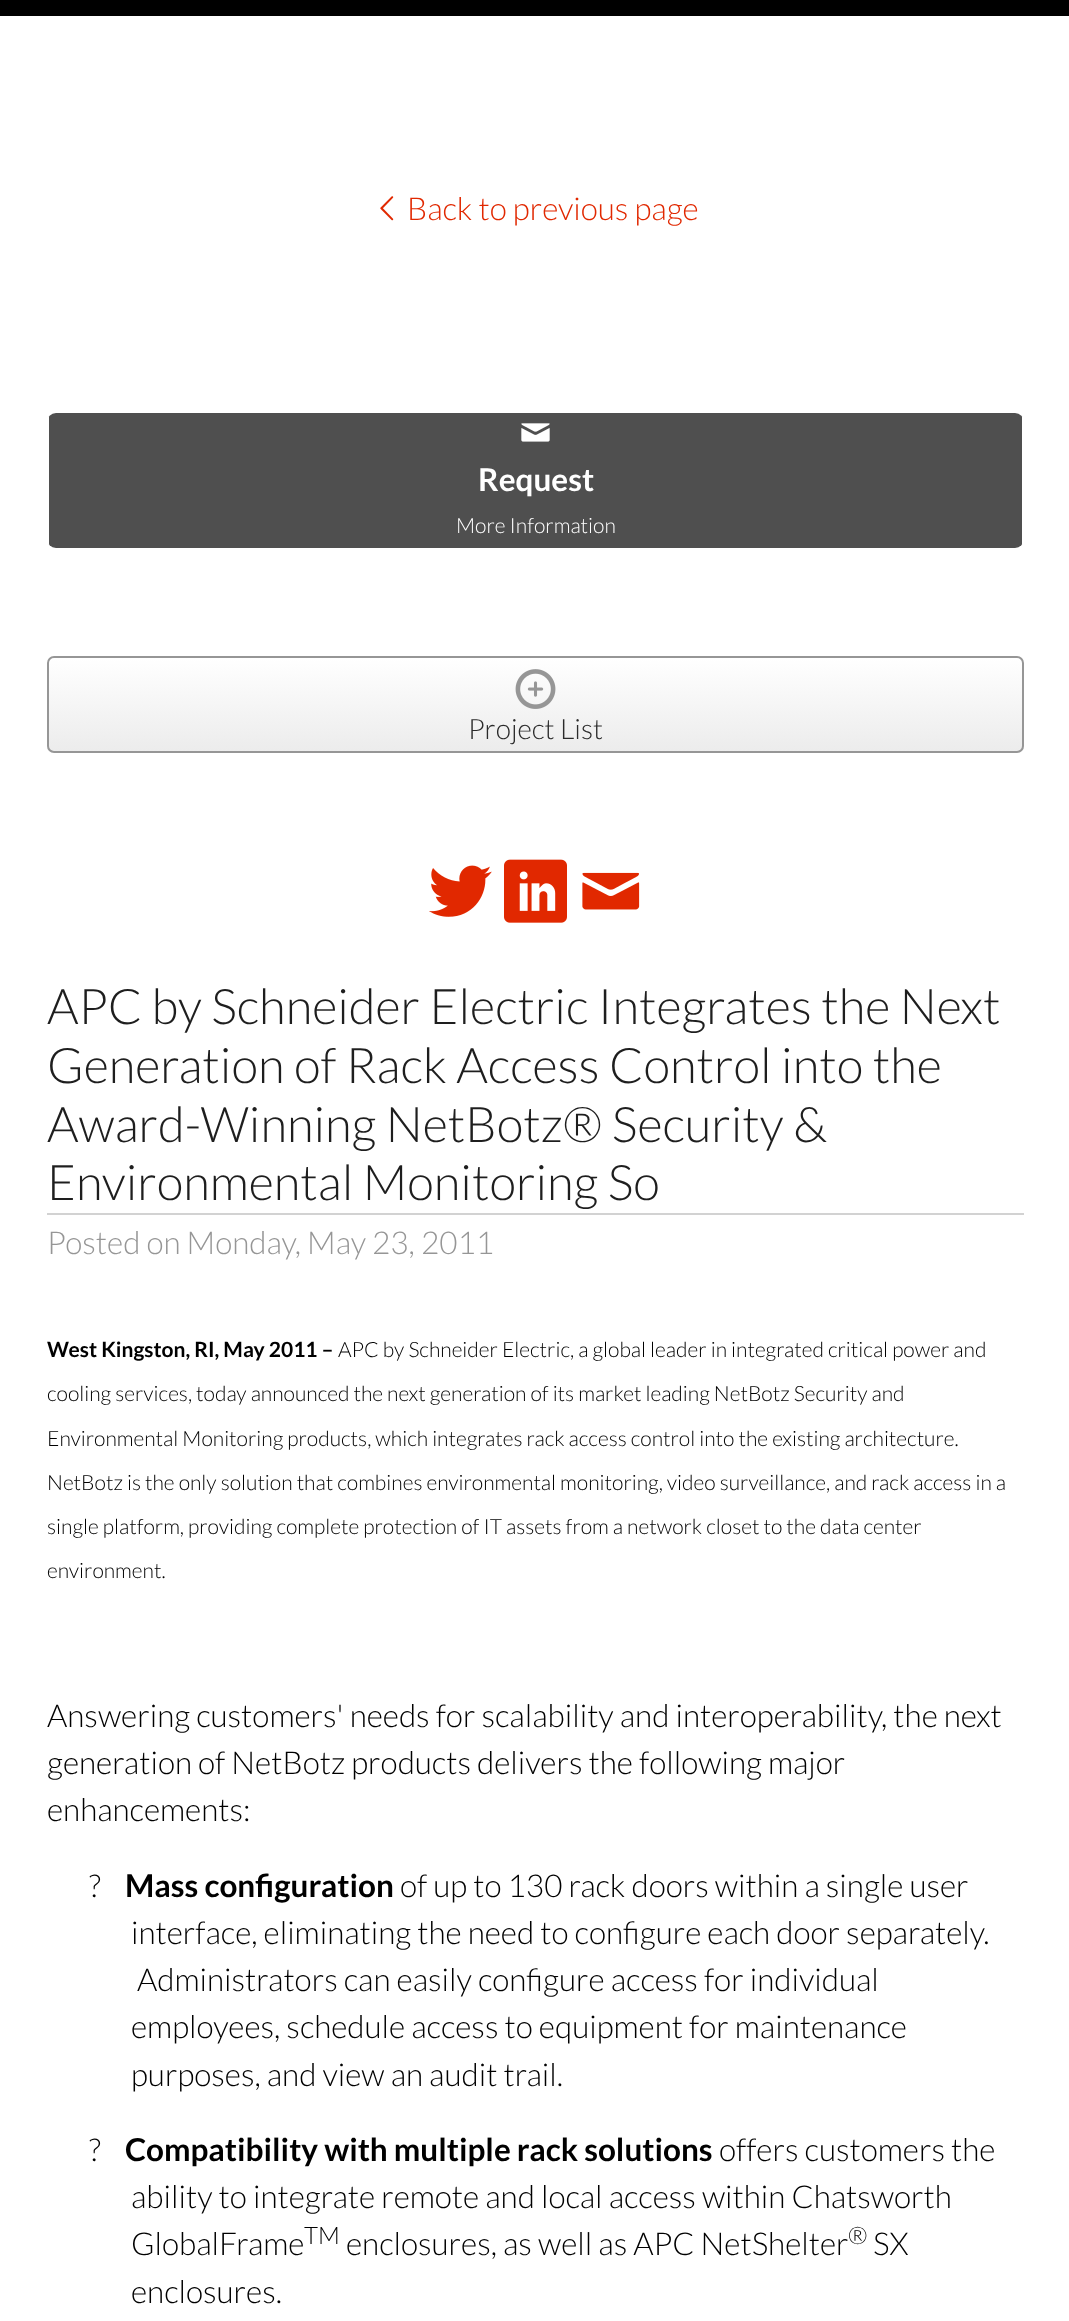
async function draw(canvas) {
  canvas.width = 1069;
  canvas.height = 2321;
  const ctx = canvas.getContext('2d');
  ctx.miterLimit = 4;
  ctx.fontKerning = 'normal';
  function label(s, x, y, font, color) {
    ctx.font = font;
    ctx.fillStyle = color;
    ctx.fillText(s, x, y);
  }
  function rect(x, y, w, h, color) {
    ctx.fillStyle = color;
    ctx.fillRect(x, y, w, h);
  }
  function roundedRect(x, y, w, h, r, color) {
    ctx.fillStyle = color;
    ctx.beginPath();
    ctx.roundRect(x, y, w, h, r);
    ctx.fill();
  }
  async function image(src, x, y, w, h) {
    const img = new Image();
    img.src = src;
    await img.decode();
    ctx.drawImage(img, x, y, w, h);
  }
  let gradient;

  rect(0, 0, 1069, 2321, '#fff');
  rect(0, 0, 1069, 16, '#000');
  await image('assets/img1.png', 380, 196, 14, 25);
  label('Back to previous page', 407, 220, '300 31.5px Lato', '#e12800');
  roundedRect(47, 413, 977, 135, 9, '#4f4f4f');
  rect(1022, 417, 2, 127, '#fff');
  rect(47, 417, 2, 127, '#fff');
  await image('assets/img2.png', 521, 423, 29, 19);
  label('Request', 478, 491, 'bold 31.5px Lato', '#fff');
  label('More Information', 456, 533, '300 21px Lato', '#fff');
  ctx.save();
  ctx.beginPath();
  ctx.roundRect(47, 656, 977, 97, 7);
  ctx.clip();
  gradient = ctx.createLinearGradient(536, 658, 536, 751);
  gradient.addColorStop(0, '#fff');
  gradient.addColorStop(1, '#ececec');
  ctx.fillStyle = gradient;
  ctx.fillRect(47, 658, 977, 93);
  ctx.restore();
  ctx.beginPath();
  ctx.roundRect(48, 657, 975, 95, 6);
  ctx.strokeStyle = '#969696';
  ctx.lineWidth = 2;
  ctx.stroke();
  await image('assets/img3.png', 515, 669, 41, 40);
  label('Project List', 468, 739, '300 28px Lato', '#2a2a2a');
  await image('assets/img4.png', 429, 865, 63, 52);
  await image('assets/img5.png', 504, 859, 63, 64);
  await image('assets/img6.png', 582, 872, 58, 38);
  label('APC by Schneider Electric Integrates the Next', 47, 1024, '300 49px Lato', '#1e1e1e');
  label('Generation of Rack Access Control into the', 47, 1083, '300 49px Lato', '#1e1e1e');
  label('Award-Winning NetBotz® Security &', 47, 1142, '300 49px Lato', '#1e1e1e');
  label('Environmental Monitoring So', 47, 1200, '300 49px Lato', '#1e1e1e');
  rect(47, 1213, 977, 2, '#d2d2d2');
  label('Posted on Monday, May 23, 2011', 47, 1254, '300 31.5px Lato', '#969696');
  label('West Kingston, RI, May 2011 –', 47, 1357, 'bold 21px Lato', '#000');
  label('APC by Schneider Electric, a global leader in integrated critical power and', 338, 1357, '300 21px Lato', '#000');
  label('cooling services, today announced the next generation of its market leading NetBotz Security and', 47, 1401, '300 21px Lato', '#000');
  label('Environmental Monitoring products, which integrates rack access control into the existing architecture.', 47, 1446, '300 21px Lato', '#000');
  label('NetBotz is the only solution that combines environmental monitoring, video surveillance, and rack access in a', 47, 1490, '300 21px Lato', '#000');
  label('single platform, providing complete protection of IT assets from a network closet to the data center', 47, 1534, '300 21px Lato', '#000');
  label('environment.', 47, 1578, '300 21px Lato', '#000');
  label('Answering customers\' needs for scalability and interoperability, the next', 47, 1727, '300 31.5px Lato', '#000');
  label('generation of NetBotz products delivers the following major', 47, 1774, '300 31.5px Lato', '#000');
  label('enhancements:', 47, 1821, '300 31.5px Lato', '#000');
  label('?', 89, 1897, '300 31.5px Lato', '#000');
  label('Mass configuration', 125, 1897, 'bold 31.5px Lato', '#000');
  label('of up to 130 rack doors within a single user', 400, 1897, '300 31.5px Lato', '#000');
  label('interface, eliminating the need to configure each door separately.', 131, 1944, '300 31.5px Lato', '#000');
  label('Administrators can easily configure access for individual', 137, 1991, '300 31.5px Lato', '#000');
  label('employees, schedule access to equipment for maintenance', 131, 2038, '300 31.5px Lato', '#000');
  label('purposes, and view an audit trail.', 131, 2086, '300 31.5px Lato', '#000');
  label('?', 89, 2161, '300 31.5px Lato', '#000');
  label('Compatibility with multiple rack solutions', 125, 2161, 'bold 31.5px Lato', '#000');
  label('offers customers the', 719, 2161, '300 31.5px Lato', '#000');
  label('ability to integrate remote and local access within Chatsworth', 131, 2208, '300 31.5px Lato', '#000');
  label('GlobalFrame', 131, 2255, '300 31.5px Lato', '#000');
  label('TM', 304, 2244, '300 24px Lato', '#000');
  label('enclosures, as well as APC NetShelter', 346, 2255, '300 31.5px Lato', '#000');
  label('®', 848, 2244, '300 24px Lato', '#000');
  label('SX', 873, 2255, '300 31.5px Lato', '#000');
  label('enclosures.', 131, 2303, '300 31.5px Lato', '#000');
}

draw(document.querySelector('canvas'));
